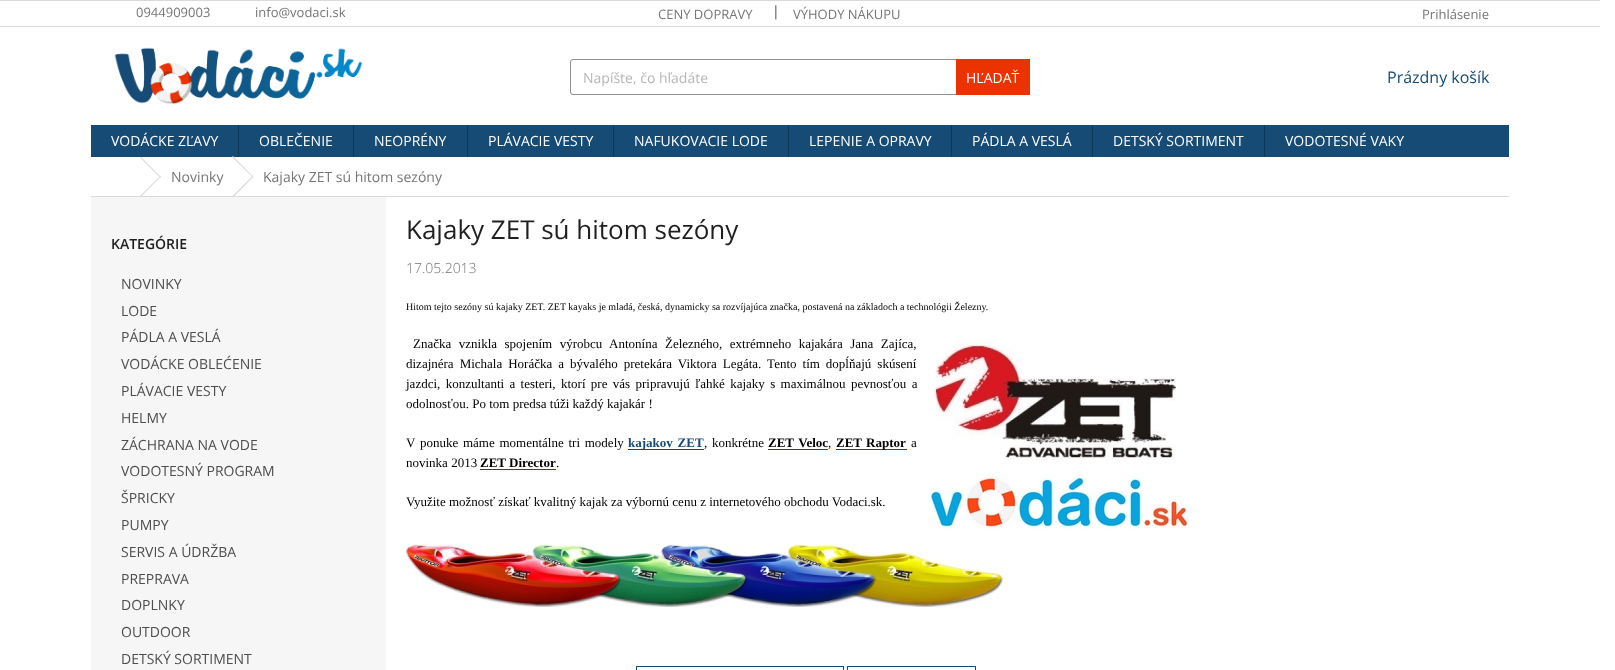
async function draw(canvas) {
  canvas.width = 1615;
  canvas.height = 670;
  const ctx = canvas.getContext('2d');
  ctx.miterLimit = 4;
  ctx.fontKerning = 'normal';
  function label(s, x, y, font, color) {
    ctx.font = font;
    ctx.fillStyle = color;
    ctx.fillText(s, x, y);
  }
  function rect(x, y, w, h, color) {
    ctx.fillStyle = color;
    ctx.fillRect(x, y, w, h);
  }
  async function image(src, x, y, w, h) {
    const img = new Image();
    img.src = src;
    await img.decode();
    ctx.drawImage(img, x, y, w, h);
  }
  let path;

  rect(0, 0, 1615, 670, '#fff');
  rect(0, 0, 1600, 1, '#dadada');
  rect(0, 26, 1600, 1, '#dadada');
  label('0944909003', 136, 17, '13px Open Sans', '#767676');
  label('info@vodaci.sk', 255, 17, '13px Open Sans', '#767676');
  label('CENY DOPRAVY', 658, 19, '13px Open Sans', '#767676');
  label('|', 772, 16, '14px Open Sans', '#4d4d4d');
  label('VÝHODY NÁKUPU', 793, 19, '13px Open Sans', '#767676');
  label('Prihlásenie', 1422, 19, '13px Open Sans', '#767676');
  await image('assets/img1.png', 114, 47, 249, 58);
  ctx.beginPath();
  ctx.roundRect(570.5, 59.5, 459, 35, 2.5);
  ctx.strokeStyle = '#919191';
  ctx.stroke();
  label('Napíšte, čo hľadáte', 583, 83, '14px Open Sans', '#b6b6b6');
  rect(956, 59, 74, 36, '#eb3300');
  label('HĽADAŤ', 966, 83, '14px Open Sans', '#fff');
  label('Prázdny košík', 1387, 83, '16px Open Sans', '#154b75');
  rect(91, 125, 1418, 32, '#154b75');
  label('VODÁCKE ZĽAVY', 111, 146, '14px Open Sans', '#fff');
  rect(238, 125, 1, 32, '#0f3857');
  label('OBLEČENIE', 259, 146, '14px Open Sans', '#fff');
  rect(353, 125, 1, 32, '#0f3857');
  label('NEOPRÉNY', 374, 146, '14px Open Sans', '#fff');
  rect(467, 125, 1, 32, '#0f3857');
  label('PLÁVACIE VESTY', 488, 146, '14px Open Sans', '#fff');
  rect(613, 125, 1, 32, '#0f3857');
  label('NAFUKOVACIE LODE', 634, 146, '14px Open Sans', '#fff');
  rect(788, 125, 1, 32, '#0f3857');
  label('LEPENIE A OPRAVY', 809, 146, '14px Open Sans', '#fff');
  rect(951, 125, 1, 32, '#0f3857');
  label('PÁDLA A VESLÁ', 972, 146, '14px Open Sans', '#fff');
  rect(1092, 125, 1, 32, '#0f3857');
  label('DETSKÝ SORTIMENT', 1113, 146, '14px Open Sans', '#fff');
  rect(1264, 125, 1, 32, '#0f3857');
  label('VODOTESNÉ VAKY', 1285, 146, '14px Open Sans', '#fff');
  rect(91, 196, 1418, 1, '#dadada');
  path = new Path2D('M140 157.5L141 157L161 177L160 177.5Z');
  ctx.fill(path);
  path = new Path2D('M160 176L161 176.5L141 196.5L140 196Z');
  ctx.fill(path);
  label('Novinky', 171, 182, '14px Open Sans', '#767676');
  ctx.fillStyle = '#dadada';
  path = new Path2D('M232 157L233 156L253.5 177L253 177.5Z');
  ctx.fill(path);
  rect(91, 197, 295, 473, '#f6f6f6');
  ctx.fillStyle = '#dadada';
  path = new Path2D('M253 175.5L253.5 176.5L233 197.5L232 196.5Z');
  ctx.fill(path);
  label('Kajaky ZET sú hitom sezóny', 263, 182, '14px Open Sans', '#767676');
  label('KATEGÓRIE', 111, 249, '600 14px Open Sans', '#1f1f1f');
  label('NOVINKY', 121, 289, '14px Open Sans', '#4d4d4d');
  label('LODE', 121, 316, '14px Open Sans', '#4d4d4d');
  label('PÁDLA A VESLÁ', 121, 342, '14px Open Sans', '#4d4d4d');
  label('VODÁCKE OBLEĆENIE', 121, 369, '14px Open Sans', '#4d4d4d');
  label('PLÁVACIE VESTY', 121, 396, '14px Open Sans', '#4d4d4d');
  label('HELMY', 121, 423, '14px Open Sans', '#4d4d4d');
  label('ZÁCHRANA NA VODE', 121, 450, '14px Open Sans', '#4d4d4d');
  label('VODOTESNÝ PROGRAM', 121, 476, '14px Open Sans', '#4d4d4d');
  label('ŠPRICKY', 121, 503, '14px Open Sans', '#4d4d4d');
  label('PUMPY', 121, 530, '14px Open Sans', '#4d4d4d');
  label('SERVIS A ÚDRŽBA', 121, 557, '14px Open Sans', '#4d4d4d');
  label('PREPRAVA', 121, 584, '14px Open Sans', '#4d4d4d');
  label('DOPLNKY', 121, 610, '14px Open Sans', '#4d4d4d');
  label('OUTDOOR', 121, 637, '14px Open Sans', '#4d4d4d');
  label('DETSKÝ SORTIMENT', 121, 664, '14px Open Sans', '#4d4d4d');
  label('Kajaky ZET sú hitom sezóny', 406, 239, '26px Open Sans', '#1f1f1f');
  label('17.05.2013', 406, 273, '300 14px Open Sans', '#767676');
  label('Hitom tejto sezóny sú kajaky ZET. ZET kayaks je mladá, česká, dynamicky sa rozvíjajúca značka, postavená na základoch a technológii Železny.', 406, 310, '10px Liberation Serif', '#000');
  ctx.wordSpacing = '4.25px';
  label('Značka vznikla spojením výrobcu Antonína Železného, extrémneho kajakára Jana Zajíca,', 413, 348, '13px Liberation Serif', '#000');
  ctx.wordSpacing = '2.75px';
  label('dizajnéra Michala Horáčka a bývalého pretekára Viktora Legáta. Tento tím dopĺňajú skúsení', 406, 368, '13px Liberation Serif', '#000');
  ctx.wordSpacing = '2.1px';
  label('jazdci, konzultanti a testeri, ktorí pre vás pripravujú ľahké kajaky s maximálnou pevnosťou a', 406, 388, '13px Liberation Serif', '#000');
  ctx.wordSpacing = '0px';
  label('odolnosťou. Po tom predsa túži každý kajakár !', 406, 408, '13px Liberation Serif', '#000');
  await image('assets/img2.png', 929, 339, 260, 190);
  ctx.wordSpacing = '1.5px';
  label('V ponuke máme momentálne tri modely', 406, 447, '13px Liberation Serif', '#000');
  rect(628, 449, 76, 1, '#154b75');
  label('kajakov ZET', 628, 447, 'bold 13px Liberation Serif', '#154b75');
  label(', konkrétne', 704, 447, '13px Liberation Serif', '#000');
  label('ZET Veloc', 768, 447, 'bold 13px Liberation Serif', '#000');
  ctx.wordSpacing = '0px';
  label(',', 828, 447, '13px Liberation Serif', '#000');
  rect(768, 449, 60, 1, '#154b75');
  rect(836, 449, 71, 1, '#154b75');
  ctx.wordSpacing = '1px';
  label('ZET Raptor', 836, 447, 'bold 13px Liberation Serif', '#000');
  ctx.wordSpacing = '0px';
  label('a', 911, 447, '13px Liberation Serif', '#000');
  label('novinka 2013', 406, 467, '13px Liberation Serif', '#000');
  label('ZET Director', 480, 467, 'bold 13px Liberation Serif', '#000');
  label('.', 556, 467, '13px Liberation Serif', '#000');
  rect(480, 469, 76, 1, '#154b75');
  label('Využite možnosť získať kvalitný kajak za výbornú cenu z internetového obchodu Vodaci.sk.', 406, 506, '13px Liberation Serif', '#000');
  await image('assets/img3.png', 406, 543, 600, 64);
  ctx.strokeStyle = '#154b75';
  ctx.strokeRect(636.5, 666.5, 207, 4);
  ctx.strokeRect(847.5, 666.5, 128, 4);
}

draw(document.querySelector('canvas'));
